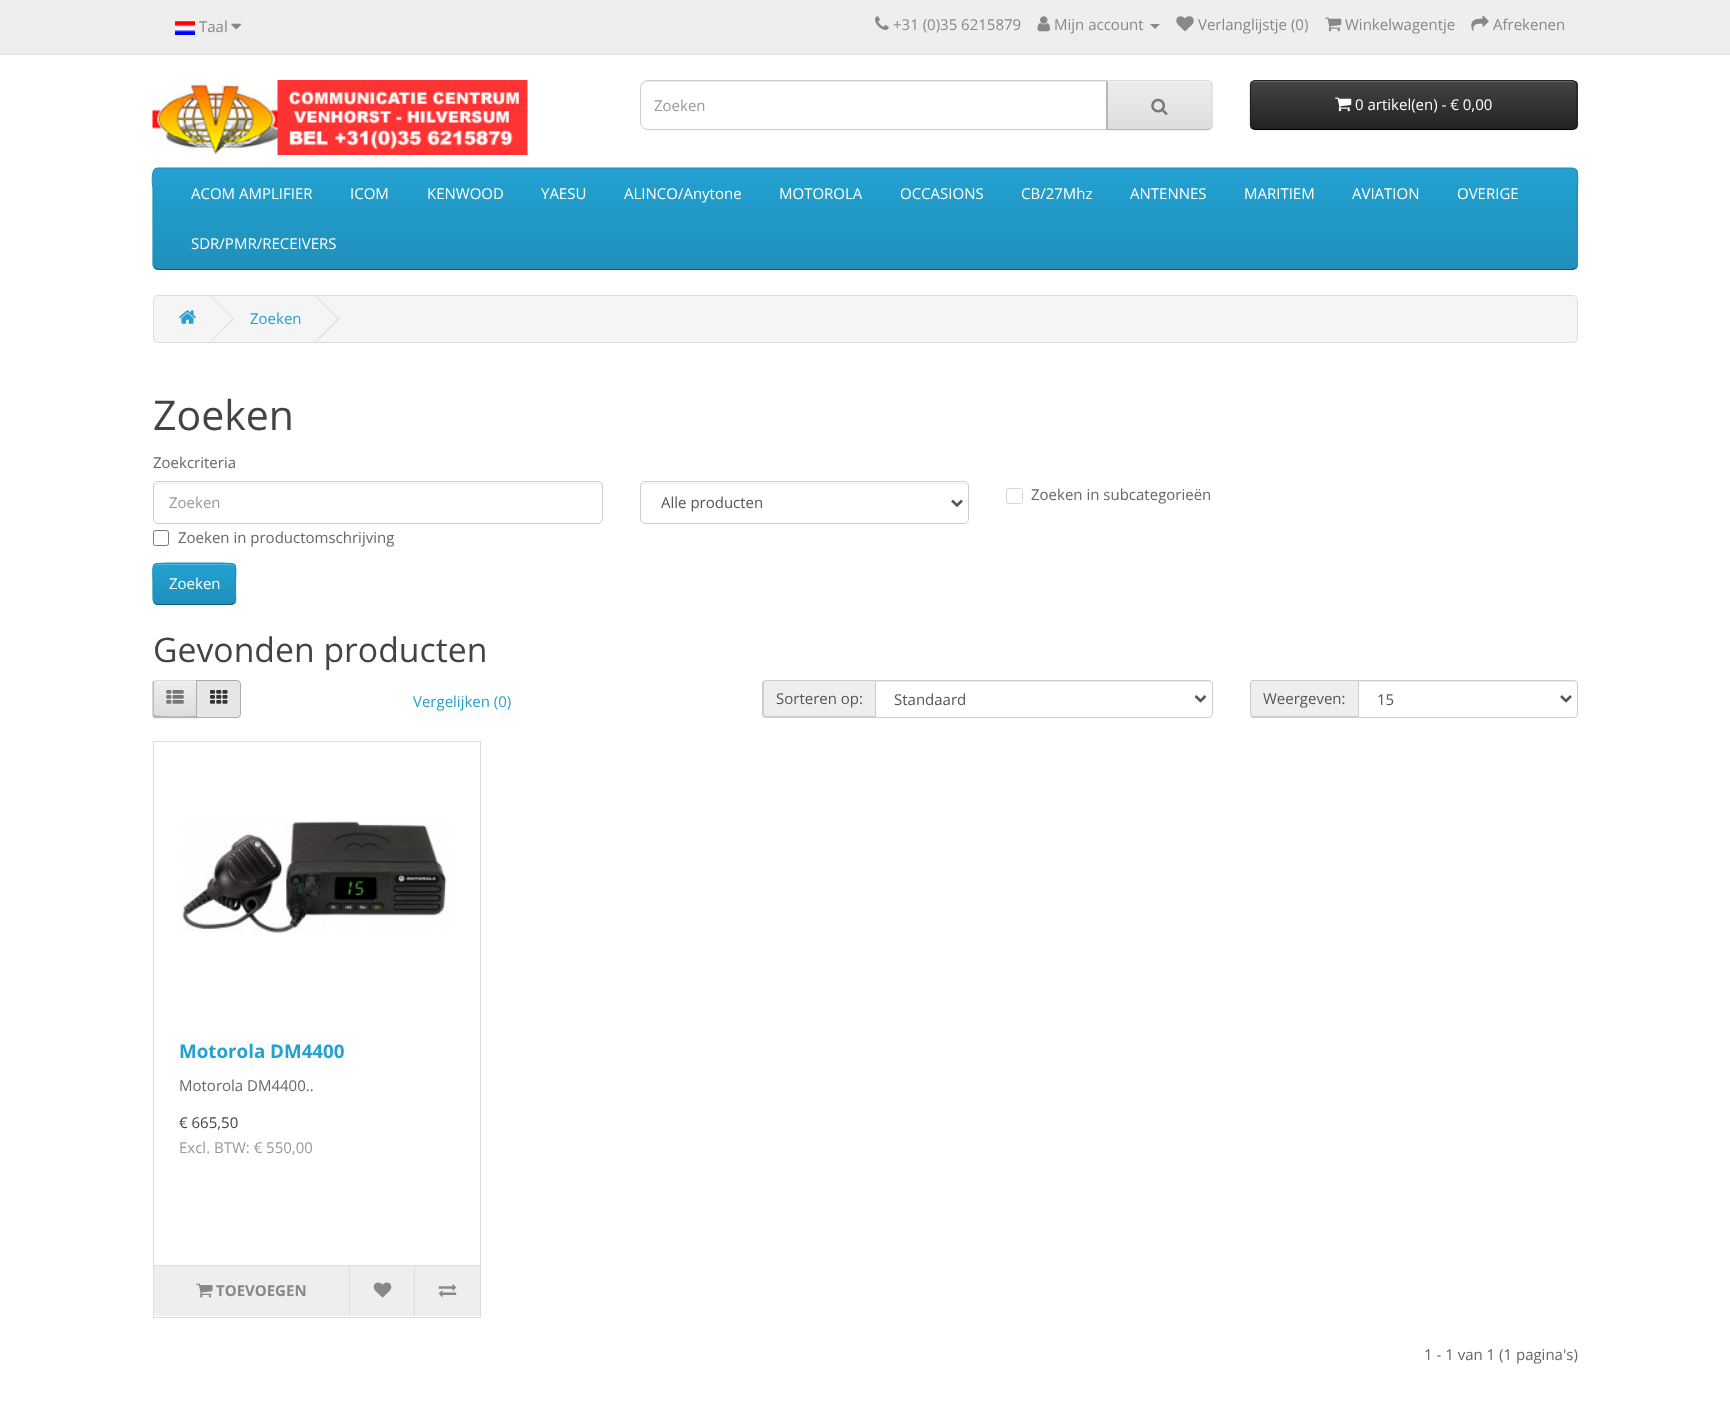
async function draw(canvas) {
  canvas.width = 1730;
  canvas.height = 1403;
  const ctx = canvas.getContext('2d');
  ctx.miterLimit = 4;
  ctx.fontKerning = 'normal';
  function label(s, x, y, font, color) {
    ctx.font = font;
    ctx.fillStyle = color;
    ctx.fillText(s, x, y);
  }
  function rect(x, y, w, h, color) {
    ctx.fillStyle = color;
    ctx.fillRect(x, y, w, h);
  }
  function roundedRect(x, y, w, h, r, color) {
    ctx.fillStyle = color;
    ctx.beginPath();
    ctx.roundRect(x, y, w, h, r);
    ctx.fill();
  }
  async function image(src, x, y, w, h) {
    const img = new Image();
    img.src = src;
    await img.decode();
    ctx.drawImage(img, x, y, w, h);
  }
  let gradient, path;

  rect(0, 0, 1730, 1403, '#fff');
  rect(0, 0, 1730, 54, '#eee');
  rect(0, 54, 1730, 1, '#e2e2e2');
  await image('assets/img1.png', 175, 21, 20, 14);
  label('Taal', 199, 32, '15px Open Sans', '#888');
  await image('assets/img2.png', 231, 23, 11, 7);
  await image('assets/img3.png', 875, 16, 14, 14);
  label('+31 (0)35 6215879', 893, 30, '15px Open Sans', '#888');
  await image('assets/img4.png', 1037, 16, 13, 16);
  label('Mijn account', 1054, 30, '15px Open Sans', '#888');
  path = new Path2D('M1150 24H1160L1155 29Z');
  ctx.fill(path);
  await image('assets/img5.png', 1176, 16, 18, 16);
  label('Verlanglijstje (0)', 1198, 30, '15px Open Sans', '#888');
  await image('assets/img6.png', 1325, 17, 17, 15);
  label('Winkelwagentje', 1345, 30, '15px Open Sans', '#888');
  await image('assets/img7.png', 1471, 15, 18, 17);
  label('Afrekenen', 1493, 30, '15px Open Sans', '#888');
  await image('assets/img8.png', 152, 80, 376, 75);
  ctx.fillStyle = '#ececec';
  path = new Path2D('M648 82H1106V81H647C642 81 641 85 641 89C641 85 644 82 648 82Z');
  ctx.fill(path);
  ctx.beginPath();
  ctx.roundRect(640.5, 80.5, 467, 49, [7.5, 0, 0, 7.5]);
  ctx.strokeStyle = '#ccc';
  ctx.stroke();
  label('Zoeken', 654, 111, '15px Open Sans', '#999');
  ctx.fillStyle = '#0000000d';
  ctx.filter = 'blur(1px)';
  ctx.beginPath();
  ctx.roundRect(1106, 81, 107, 50, 5);
  ctx.fill();
  ctx.filter = 'none';
  ctx.fillStyle = '#e7e7e7';
  ctx.beginPath();
  ctx.roundRect(1106, 80, 107, 50, [0, 5, 5, 0]);
  ctx.fill();
  ctx.save();
  ctx.beginPath();
  ctx.roundRect(1106, 80, 107, 50, [0, 5, 5, 0]);
  ctx.clip();
  gradient = ctx.createLinearGradient(1159, 81, 1159, 129);
  gradient.addColorStop(0, '#eee');
  gradient.addColorStop(1, '#ddd');
  ctx.fillStyle = gradient;
  ctx.fillRect(1107, 81, 106, 48);
  ctx.restore();
  ctx.fillStyle = '#f1f1f1';
  path = new Path2D('M1108 82H1208C1210 82 1211 84 1211 86V85C1211 83 1209 81 1207 81H1108Z');
  ctx.fill(path);
  ctx.fillStyle = '#ddd';
  path = new Path2D('M1108 81H1208L1210 82H1211L1208 80H1106L1108 82Z');
  ctx.fill(path);
  path = new Path2D('M1211 82C1212 82 1212 84 1212 85V125C1212 126 1212 128 1211 128H1210C1212 126 1212 84 1210 82Z');
  ctx.fill(path);
  ctx.fillStyle = '#b3b3b3';
  path = new Path2D('M1106 130H1208L1211 128H1210L1208 129H1108V128Z');
  ctx.fill(path);
  ctx.fillStyle = '#b7b7b7';
  path = new Path2D('M1106 130L1108 128V82L1106 80Z');
  ctx.fill(path);
  await image('assets/img9.png', 1151, 98, 17, 17);
  ctx.fillStyle = '#0000000d';
  ctx.filter = 'blur(1px)';
  ctx.beginPath();
  ctx.roundRect(1250, 81, 328, 50, 5);
  ctx.fill();
  ctx.filter = 'none';
  ctx.save();
  ctx.beginPath();
  ctx.roundRect(1250, 80, 328, 50, 5);
  ctx.clip();
  gradient = ctx.createLinearGradient(1414, 81, 1414, 129);
  gradient.addColorStop(0, '#444');
  gradient.addColorStop(1, '#222');
  ctx.fillStyle = gradient;
  ctx.fillRect(1250, 81, 328, 48);
  ctx.restore();
  ctx.fillStyle = '#696969';
  path = new Path2D('M1255 82H1572C1575 82 1576 84 1576 86V85C1576 83 1574 81 1572 81H1255C1253 81 1251 83 1251 85V86C1251 84 1253 82 1255 82Z');
  ctx.fill(path);
  path = new Path2D('M1575.5 128C1575 129 1573.5 129.5 1572.5 129.5H1255C1254 129.5 1252.5 129 1252 128');
  ctx.strokeStyle = '#000';
  ctx.lineWidth = 1.2;
  ctx.stroke(path);
  path = new Path2D('M1252 128C1251 127.5 1250.5 126 1250.5 125V85C1250.5 84 1251 82.5 1252 82C1252.5 81 1254 80.5 1255 80.5H1572.5C1573.5 80.5 1575 81 1575.5 82C1576.5 82.5 1577 84 1577 85V125C1577 126 1576.5 127.5 1575.5 128');
  ctx.strokeStyle = '#222';
  ctx.stroke(path);
  await image('assets/img10.png', 1335, 97, 17, 15);
  label('0 artikel(en) - € 0,00', 1355, 110, '15px Open Sans', '#fff');
  roundedRect(153, 168, 1425, 102, 5, '#229ac8');
  ctx.save();
  ctx.beginPath();
  ctx.roundRect(153, 168, 1425, 102, 5);
  ctx.clip();
  gradient = ctx.createLinearGradient(865, 169, 865, 269);
  gradient.addColorStop(0, '#23a1d1');
  gradient.addColorStop(1, '#1f90bb');
  ctx.fillStyle = gradient;
  ctx.fillRect(153, 169, 1425, 100);
  ctx.restore();
  path = new Path2D('M1575.5 268L1572.5 269.5H157.5L154.5 268');
  ctx.strokeStyle = '#145e7a';
  ctx.stroke(path);
  path = new Path2D('M154.5 268L153 265V188C153 188 149.5 168 157.5 168H1572.5C1580.5 168 1577 188 1577 188V265L1575.5 268');
  ctx.strokeStyle = '#1f90bb';
  ctx.stroke(path);
  label('ACOM AMPLIFIER', 191, 199, '15px Open Sans', '#fff');
  label('ICOM', 350, 199, '15px Open Sans', '#fff');
  label('KENWOOD', 427, 199, '15px Open Sans', '#fff');
  label('YAESU', 541, 199, '15px Open Sans', '#fff');
  label('ALINCO/Anytone', 624, 199, '15px Open Sans', '#fff');
  label('MOTOROLA', 779, 199, '15px Open Sans', '#fff');
  label('OCCASIONS', 900, 199, '15px Open Sans', '#fff');
  label('CB/27Mhz', 1021, 199, '15px Open Sans', '#fff');
  label('ANTENNES', 1130, 199, '15px Open Sans', '#fff');
  label('MARITIEM', 1244, 199, '15px Open Sans', '#fff');
  label('AVIATION', 1352, 199, '15px Open Sans', '#fff');
  label('OVERIGE', 1457, 199, '15px Open Sans', '#fff');
  label('SDR/PMR/RECEIVERS', 191, 249, '15px Open Sans', '#fff');
  ctx.fillStyle = '#f5f5f5';
  ctx.beginPath();
  ctx.roundRect(153.5, 295.5, 1424, 47, 4.5);
  ctx.fill();
  ctx.strokeStyle = '#ddd';
  ctx.lineWidth = 1;
  ctx.stroke();
  await image('assets/img11.png', 179, 310, 17, 14);
  ctx.fillStyle = '#ddd';
  path = new Path2D('M210.5 296.5L211 296L234 319L233.5 319.5Z');
  ctx.fill(path);
  path = new Path2D('M210.5 341L233.5 318L234 319L211 341.5Z');
  ctx.fill(path);
  label('Zoeken', 250, 324, '15px Open Sans', '#23a1d1');
  ctx.fillStyle = '#ddd';
  path = new Path2D('M315.5 296.5L316.5 296L339.5 319L338.5 319.5Z');
  ctx.fill(path);
  path = new Path2D('M315.5 341L338.5 318L339.5 319L316.5 341.5Z');
  ctx.fill(path);
  label('Zoeken', 153, 430, '41px Open Sans', '#444');
  label('Zoekcriteria', 153, 468, '15px Open Sans', '#666');
  ctx.fillStyle = '#ececec';
  path = new Path2D('M158 484H598C600 484 601 485 601 488C601 485 600 483 597 483H158L156 484L155 485L154 488C154 485 155 484 158 484Z');
  ctx.fill(path);
  ctx.beginPath();
  ctx.roundRect(153.5, 481.5, 449, 42, 4.5);
  ctx.strokeStyle = '#ccc';
  ctx.stroke();
  label('Zoeken', 169, 508, '15px Open Sans', '#999');
  ctx.fillStyle = '#ececec';
  path = new Path2D('M645 484H964C966 484 968 485 968 488V487C968 485 966 483 964 483H645C643 483 641 485 641 487V488C641 485 643 484 645 484Z');
  ctx.fill(path);
  ctx.beginPath();
  ctx.roundRect(640.5, 481.5, 328, 42, 4.5);
  ctx.stroke();
  path = new Path2D('M952 500.5L957 505.5L962 500.5');
  ctx.strokeStyle = '#555';
  ctx.lineWidth = 2.5;
  ctx.stroke(path);
  label('Alle producten', 661, 508, '15px Open Sans', '#555');
  ctx.beginPath();
  ctx.roundRect(1006.5, 488.5, 16, 15, 2);
  ctx.strokeStyle = '#d6d6d6';
  ctx.lineWidth = 1;
  ctx.stroke();
  label('Zoeken in subcategorieën', 1031, 500, '15px Open Sans', '#666');
  ctx.beginPath();
  ctx.roundRect(153.5, 530.5, 15, 15, 2);
  ctx.strokeStyle = '#767676';
  ctx.stroke();
  label('Zoeken in productomschrijving', 178, 543, '15px Open Sans', '#666');
  ctx.fillStyle = '#0000000d';
  ctx.filter = 'blur(1px)';
  ctx.beginPath();
  ctx.roundRect(153, 564, 83, 42, 5);
  ctx.fill();
  ctx.filter = 'none';
  roundedRect(153, 563, 83, 42, 5, '#229ac8');
  ctx.save();
  ctx.beginPath();
  ctx.roundRect(153, 563, 83, 42, 5);
  ctx.clip();
  gradient = ctx.createLinearGradient(194, 564, 194, 604);
  gradient.addColorStop(0, '#23a1d1');
  gradient.addColorStop(1, '#1f90bb');
  ctx.fillStyle = gradient;
  ctx.fillRect(153, 564, 83, 40);
  ctx.restore();
  ctx.fillStyle = '#ffffff33';
  path = new Path2D('M158 565H231C233 565 235 567 235 569C235 561 224 564 219 564H170C165 564 154 561 154 569C154 567 155 565 158 565Z');
  ctx.fill(path);
  path = new Path2D('M234.5 603L231.5 604.5H157L154.5 603');
  ctx.strokeStyle = '#145e7a';
  ctx.lineWidth = 1.2;
  ctx.stroke(path);
  path = new Path2D('M154.5 603C152.5 601 153 597 153 594.5V584C153 562 149 563 170 563H219C240 563 235.5 562 235.5 584V594.5C235.5 597 236.5 601 234.5 603');
  ctx.strokeStyle = '#1f90bb';
  ctx.stroke(path);
  label('Zoeken', 169, 589, '15px Open Sans', '#fff');
  label('Gevonden producten', 153, 662, '33.75px Open Sans', '#444');
  ctx.fillStyle = '#0000000d';
  ctx.filter = 'blur(1px)';
  ctx.beginPath();
  ctx.roundRect(153, 681, 45, 38, 4);
  ctx.fill();
  ctx.filter = 'none';
  gradient = ctx.createLinearGradient(175, 681, 175, 716);
  gradient.addColorStop(0, '#eee');
  gradient.addColorStop(1, '#ddd');
  ctx.fillStyle = gradient;
  ctx.fillRect(153, 681, 43, 35);
  ctx.fillStyle = '#f1f1f1';
  path = new Path2D('M156 682H196V681H156C155 681 154 682 154 684V685C154 684 155 682 156 682Z');
  ctx.fill(path);
  ctx.fillStyle = '#ddd';
  path = new Path2D('M156 680L154 681V682L156 681H196V682L198 680Z');
  ctx.fill(path);
  ctx.fillStyle = '#b3b3b3';
  path = new Path2D('M198 718H154L153 717L155 715C156 717 191 716 196 716Z');
  ctx.fill(path);
  ctx.fillStyle = '#b7b7b7';
  path = new Path2D('M152.5 682L153.5 681L154.5 682C153.5 683.5 154 688 154 689V714L154.5 715.5L153 717L152.5 716Z');
  ctx.fill(path);
  await image('assets/img12.png', 166, 690, 18, 14);
  ctx.fillStyle = '#e6e6e6';
  ctx.beginPath();
  ctx.roundRect(196.5, 680.5, 44, 37, [0, 3.5, 3.5, 0]);
  ctx.fill();
  ctx.strokeStyle = '#adadad';
  ctx.lineWidth = 1;
  ctx.stroke();
  await image('assets/img13.png', 210, 690, 18, 14);
  label('Vergelijken (0)', 413, 707, '15px Open Sans', '#23a1d1');
  ctx.fillStyle = '#eee';
  ctx.beginPath();
  ctx.roundRect(763, 680, 112, 38, [4, 0, 0, 4]);
  ctx.fill();
  ctx.fillStyle = '#ccc';
  path = new Path2D('M766 680H875V718H766C764 718 762 716 762 714V684C762 682 764 680 766 680ZM766 681H875V716H766C765 716 764 715 764 714V684C764 682 765 681 766 681Z');
  ctx.fill(path, 'evenodd');
  label('Sorteren op:', 776, 704, '15px Open Sans', '#555');
  ctx.fillStyle = '#ececec';
  path = new Path2D('M876 682H1209C1210 682 1211 684 1211 685V684C1211 682 1210 681 1208 681H876Z');
  ctx.fill(path);
  ctx.beginPath();
  ctx.roundRect(875.5, 680.5, 337, 37, [0, 3.5, 3.5, 0]);
  ctx.strokeStyle = '#ccc';
  ctx.stroke();
  path = new Path2D('M1195.5 696L1200.5 701L1205.5 696');
  ctx.strokeStyle = '#555';
  ctx.lineWidth = 2.5;
  ctx.stroke(path);
  label('Standaard', 894, 705, '15px Open Sans', '#555');
  ctx.fillStyle = '#eee';
  ctx.beginPath();
  ctx.roundRect(1250, 680, 108, 38, [4, 0, 0, 4]);
  ctx.fill();
  ctx.fillStyle = '#ccc';
  path = new Path2D('M1254 680H1358V718H1254C1252 718 1250 716 1250 714V684C1250 682 1252 680 1254 680ZM1254 681H1358V716H1254C1252 716 1251 715 1251 714V684C1251 682 1252 681 1254 681Z');
  ctx.fill(path, 'evenodd');
  label('Weergeven:', 1263, 704, '15px Open Sans', '#555');
  ctx.fillStyle = '#ececec';
  path = new Path2D('M1359 682H1574C1575 682 1576 684 1576 685C1576 684 1576 682 1574 681H1359Z');
  ctx.fill(path);
  ctx.beginPath();
  ctx.roundRect(1358.5, 680.5, 219, 37, [0, 3.5, 3.5, 0]);
  ctx.strokeStyle = '#ccc';
  ctx.lineWidth = 1;
  ctx.stroke();
  path = new Path2D('M1561 696L1566 701L1571 696');
  ctx.strokeStyle = '#555';
  ctx.lineWidth = 2.5;
  ctx.stroke(path);
  label('15', 1377, 705, '15px Open Sans', '#555');
  ctx.strokeStyle = '#ddd';
  ctx.lineWidth = 1;
  ctx.strokeRect(153.5, 741.5, 327, 576);
  await image('assets/img14.png', 180, 821, 273, 112);
  label('Motorola DM4400', 179, 1058, 'bold 18.75px Open Sans', '#23a1d1');
  label('Motorola DM4400..', 179, 1091, '15px Open Sans', '#666');
  label('€ 665,50', 179, 1128, '15px Open Sans', '#444');
  label('Excl. BTW: € 550,00', 179, 1153, '15px Open Sans', '#999');
  rect(154, 1266, 326, 50, '#eee');
  rect(154, 1265, 326, 1, '#ddd');
  await image('assets/img15.png', 196, 1283, 17, 15);
  label('TOEVOEGEN', 216, 1296, 'bold 15px Open Sans', '#888');
  rect(349, 1266, 1, 50, '#ddd');
  await image('assets/img16.png', 373, 1282, 19, 16);
  rect(414, 1266, 1, 50, '#ddd');
  await image('assets/img17.png', 438, 1284, 19, 14);
  label('1 - 1 van 1 (1 pagina\'s)', 1424, 1360, '15px Open Sans', '#666');
}

draw(document.querySelector('canvas'));
